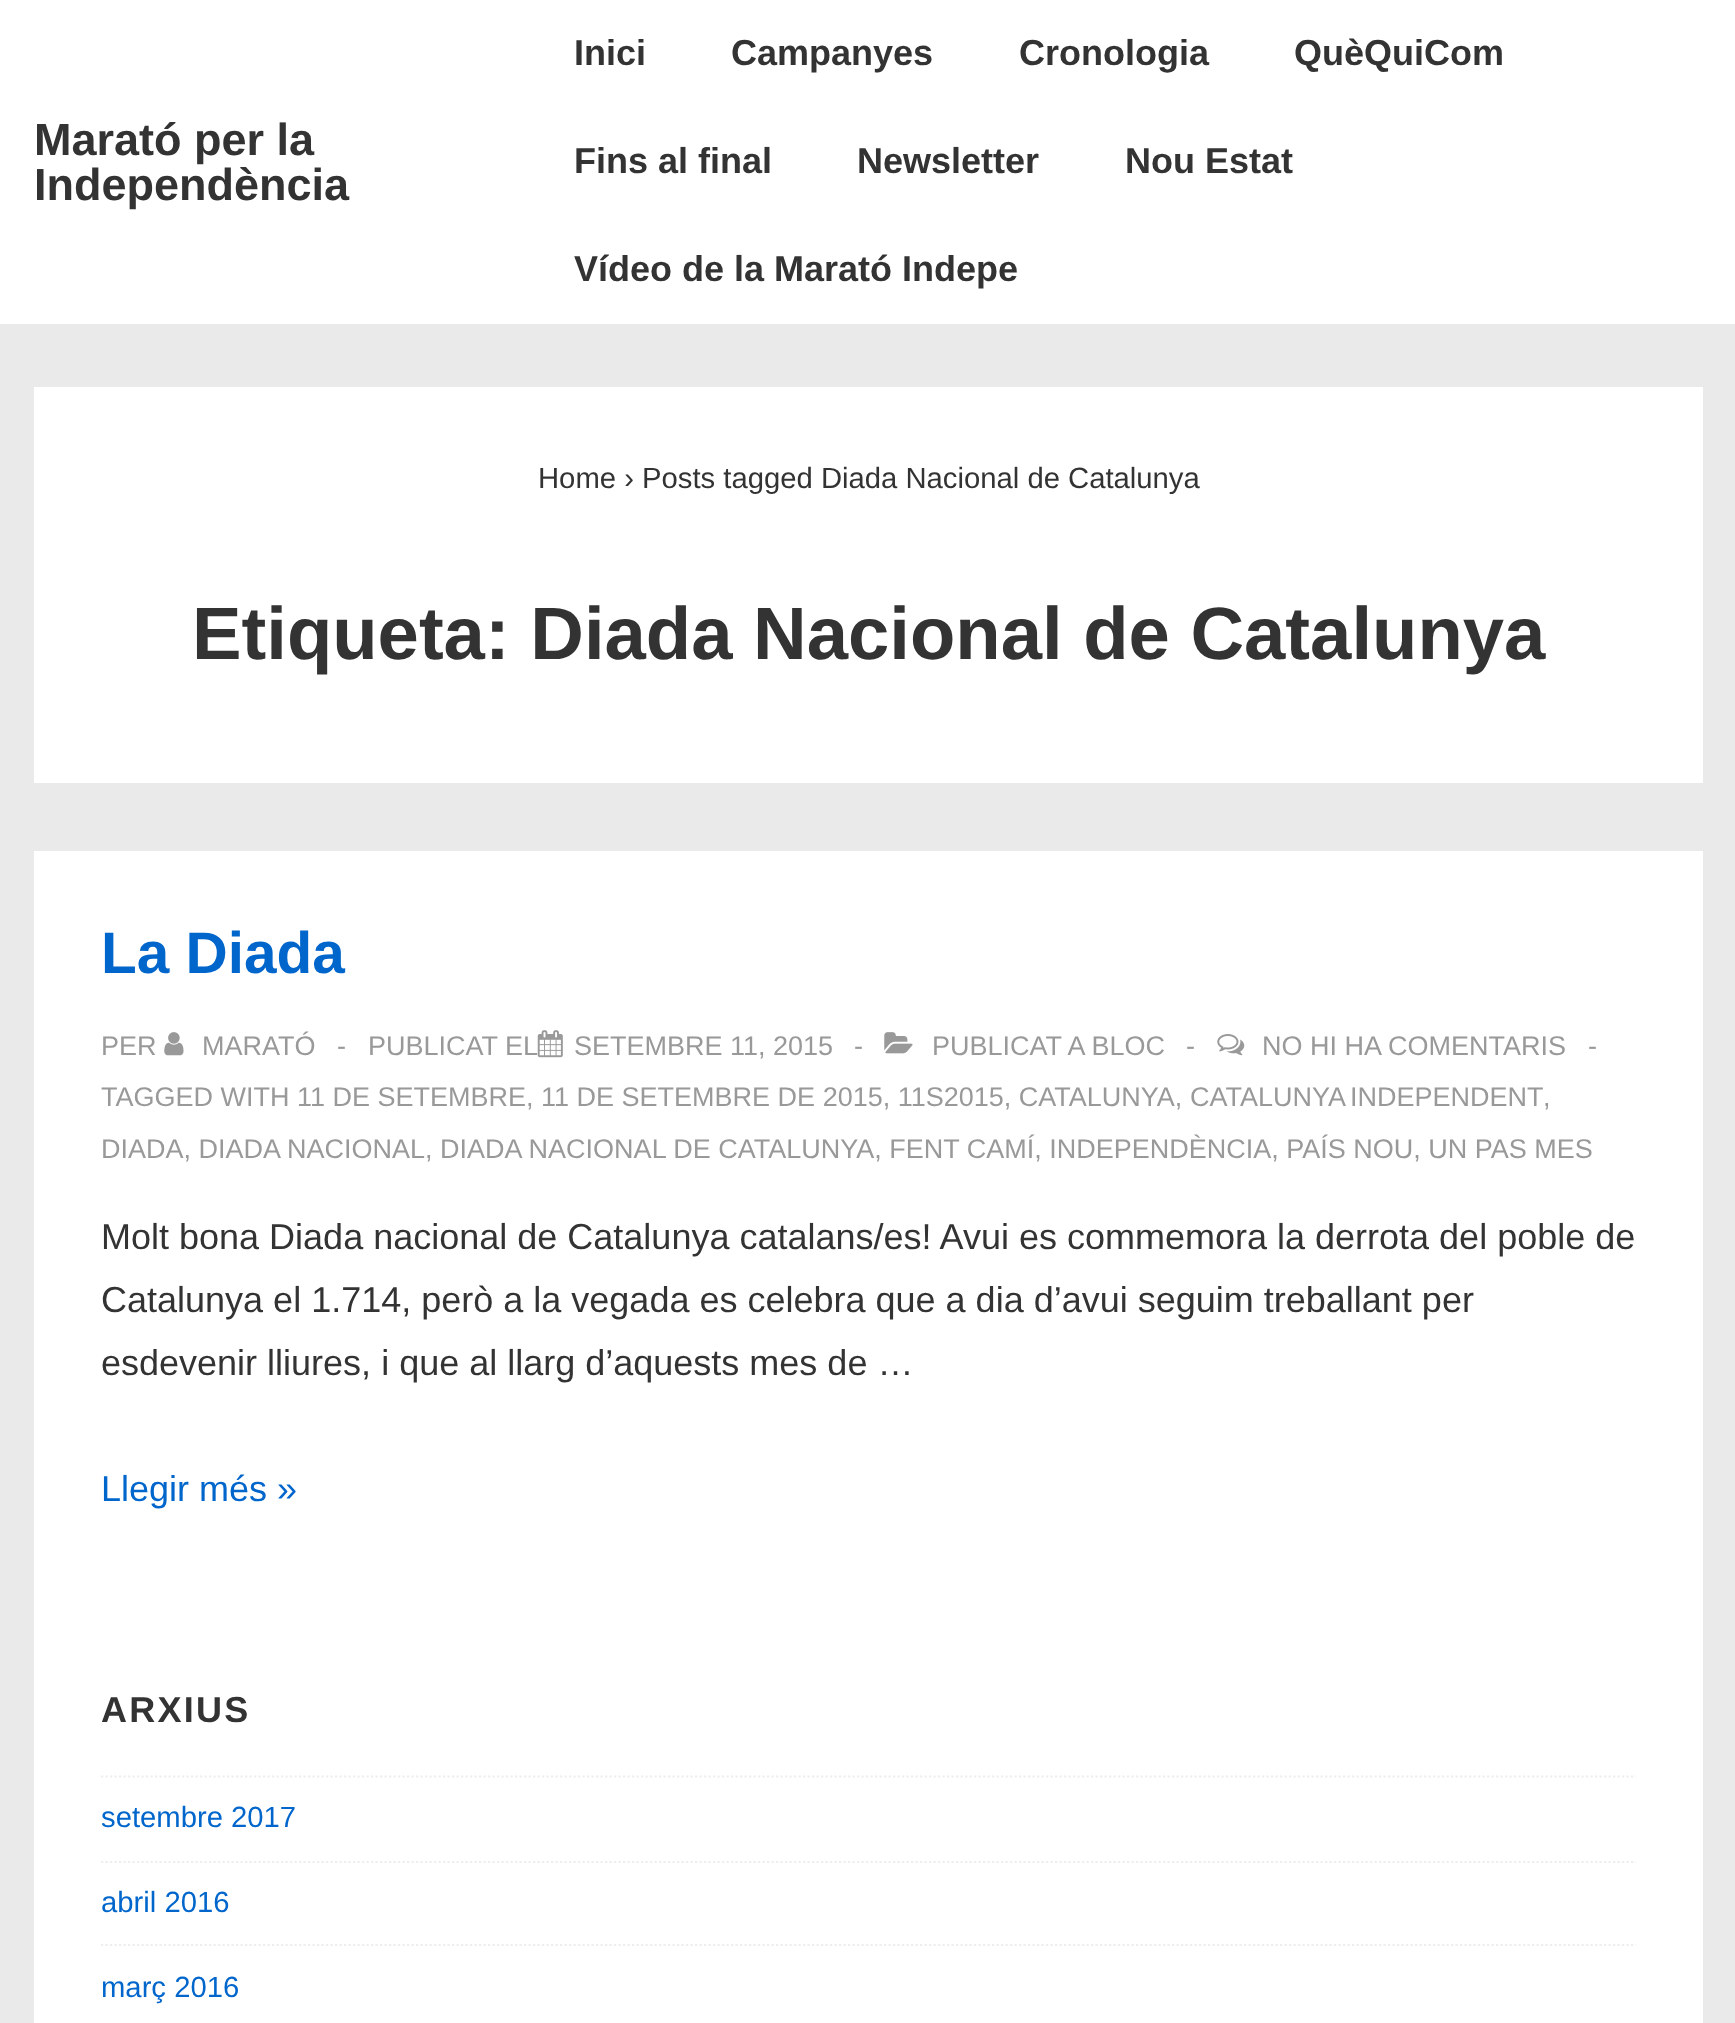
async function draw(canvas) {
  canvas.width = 1735;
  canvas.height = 2023;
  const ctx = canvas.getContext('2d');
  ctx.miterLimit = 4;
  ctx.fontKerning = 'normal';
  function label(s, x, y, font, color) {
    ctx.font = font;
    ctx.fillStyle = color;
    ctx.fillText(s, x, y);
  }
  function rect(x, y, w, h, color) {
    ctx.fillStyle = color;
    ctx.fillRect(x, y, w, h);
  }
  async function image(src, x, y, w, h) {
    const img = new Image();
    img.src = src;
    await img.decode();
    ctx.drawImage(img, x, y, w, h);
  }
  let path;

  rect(0, 0, 1735, 2023, '#eaeaea');
  rect(0, 0, 1735, 324, '#fff');
  label('Marató per la', 34, 155, 'bold 45px Liberation Sans', '#333');
  label('Independència', 34, 200, 'bold 45px Liberation Sans', '#333');
  label('Inici', 574, 65, 'bold 36px Liberation Sans', '#333');
  label('Campanyes', 731, 65, 'bold 36px Liberation Sans', '#333');
  label('Cronologia', 1019, 65, 'bold 36px Liberation Sans', '#333');
  label('QuèQuiCom', 1294, 65, 'bold 36px Liberation Sans', '#333');
  label('Fins al final', 574, 173, 'bold 36px Liberation Sans', '#333');
  label('Newsletter', 857, 173, 'bold 36px Liberation Sans', '#333');
  label('Nou Estat', 1125, 173, 'bold 36px Liberation Sans', '#333');
  label('Vídeo de la Marató Indepe', 574, 281, 'bold 36px Liberation Sans', '#333');
  rect(34, 387, 1669, 396, '#fff');
  label('Home › Posts tagged Diada Nacional de Catalunya', 538, 488, '29.25px Liberation Sans', '#333');
  label('Etiqueta: Diada Nacional de Catalunya', 192, 659, 'bold 74.25px Liberation Sans', '#333');
  rect(34, 851, 1669, 1172, '#fff');
  label('La Diada', 101, 973, 'bold 58.5px Liberation Sans', '#06c');
  label('PER', 101, 1055, '27px Liberation Sans', '#999');
  await image('assets/img1.png', 164, 1032, 20, 24);
  label('MARATÓ', 202, 1055, '27px Liberation Sans', '#999');
  label('-', 337, 1055, '27px Liberation Sans', '#999');
  label('PUBLICAT EL', 368, 1055, '27px Liberation Sans', '#999');
  await image('assets/img2.png', 537, 1030, 26, 28);
  label('SETEMBRE 11, 2015', 574, 1055, '27px Liberation Sans', '#999');
  label('-', 854, 1055, '27px Liberation Sans', '#999');
  await image('assets/img3.png', 884, 1032, 29, 22);
  label('PUBLICAT A BLOC', 932, 1055, '27px Liberation Sans', '#999');
  label('-', 1186, 1055, '27px Liberation Sans', '#999');
  await image('assets/img4.png', 1217, 1034, 28, 22);
  label('NO HI HA COMENTARIS', 1262, 1055, '27px Liberation Sans', '#999');
  label('-', 1588, 1055, '27px Liberation Sans', '#999');
  label('TAGGED WITH 11 DE SETEMBRE, 11 DE SETEMBRE DE 2015, 11S2015, CATALUNYA,', 101, 1106, '27px Liberation Sans', '#999');
  ctx.wordSpacing = '-2px';
  label('CATALUNYA INDEPENDENT', 1190, 1106, '27px Liberation Sans', '#999');
  ctx.wordSpacing = '0px';
  label(',', 1543, 1106, '27px Liberation Sans', '#999');
  label('DIADA, DIADA NACIONAL, DIADA NACIONAL DE CATALUNYA, FENT CAMÍ, INDEPENDÈNCIA, PAÍS NOU, UN PAS MES', 101, 1158, '27px Liberation Sans', '#999');
  label('Molt bona Diada nacional de Catalunya catalans/es! Avui es commemora la derrota del poble de', 101, 1249, '36px Liberation Sans', '#333');
  label('Catalunya el 1.714, però a la vegada es celebra que a dia d’avui seguim treballant per', 101, 1312, '36px Liberation Sans', '#333');
  label('esdevenir lliures, i que al llarg d’aquests mes de …', 101, 1375, '36px Liberation Sans', '#333');
  label('Llegir més »', 101, 1501, '36px Liberation Sans', '#06c');
  ctx.letterSpacing = '2.25px';
  label('ARXIUS', 101, 1722, 'bold 36px Liberation Sans', '#333');
  path = new Path2D('M101 1776.5H1636');
  ctx.strokeStyle = '#eee';
  ctx.lineWidth = 2.2;
  ctx.setLineDash([2.25, 2.25]);
  ctx.stroke(path);
  ctx.letterSpacing = '0px';
  label('setembre 2017', 101, 1827, '29.25px Liberation Sans', '#06c');
  path = new Path2D('M101 1862H1636');
  ctx.stroke(path);
  label('abril 2016', 101, 1912, '29.25px Liberation Sans', '#06c');
  path = new Path2D('M101 1945H1636');
  ctx.stroke(path);
  label('març 2016', 101, 1997, '29.25px Liberation Sans', '#06c');
}

draw(document.querySelector('canvas'));
